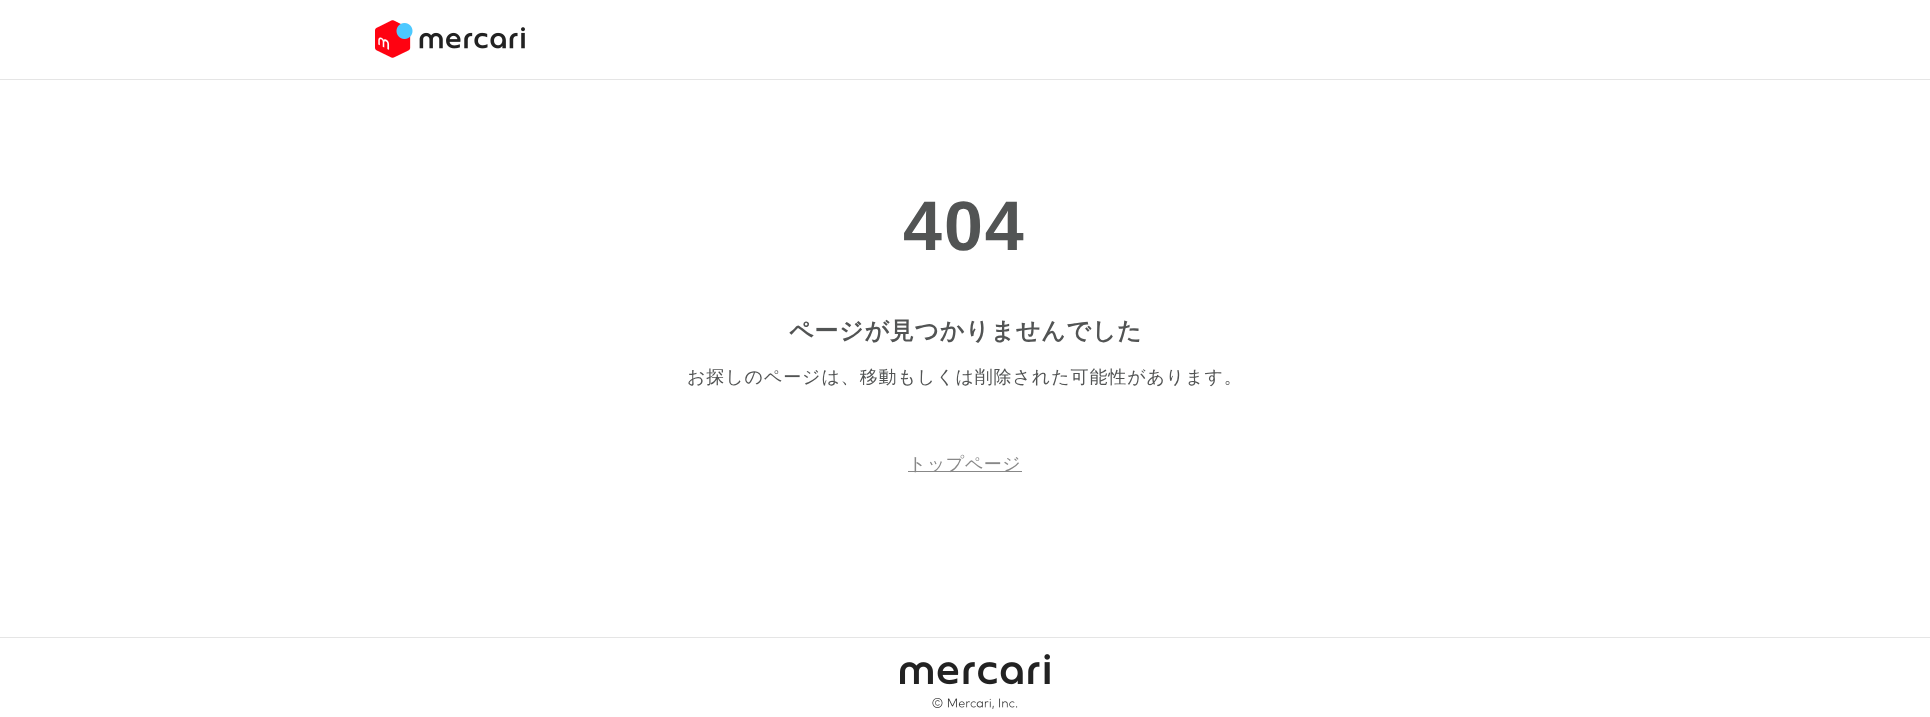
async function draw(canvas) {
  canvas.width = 1930;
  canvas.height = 717;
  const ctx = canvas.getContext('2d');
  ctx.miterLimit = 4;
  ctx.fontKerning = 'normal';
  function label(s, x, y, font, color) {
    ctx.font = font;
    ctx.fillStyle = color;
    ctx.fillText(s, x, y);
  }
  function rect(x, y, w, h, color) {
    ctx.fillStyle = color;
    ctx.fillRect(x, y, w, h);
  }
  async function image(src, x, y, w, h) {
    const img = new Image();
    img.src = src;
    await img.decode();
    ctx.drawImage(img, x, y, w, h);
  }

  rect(0, 0, 1930, 717, '#fff');
  rect(0, 79, 1930, 1, '#e5e5e5');
  await image('assets/img1.png', 375, 20, 150, 38);
  ctx.letterSpacing = '2px';
  label('404', 903, 250, 'bold 70px Liberation Sans', '#525454');
  ctx.letterSpacing = '0.75px';
  label('ページが見つかりませんでした', 789, 339, 'bold 24px WenQuanYi Zen Hei', '#525454');
  ctx.letterSpacing = '0.9px';
  label('お探しのページは、移動もしくは削除された可能性があります。', 687, 383, '500 18px WenQuanYi Zen Hei', '#525454');
  rect(908, 471, 114, 1, '#888');
  ctx.letterSpacing = '0.5px';
  label('トップページ', 908, 470, '500 18px WenQuanYi Zen Hei', '#888');
  rect(0, 637, 1930, 1, '#e5e5e5');
  await image('assets/img2.png', 900, 654, 150, 55);
}

draw(document.querySelector('canvas'));
